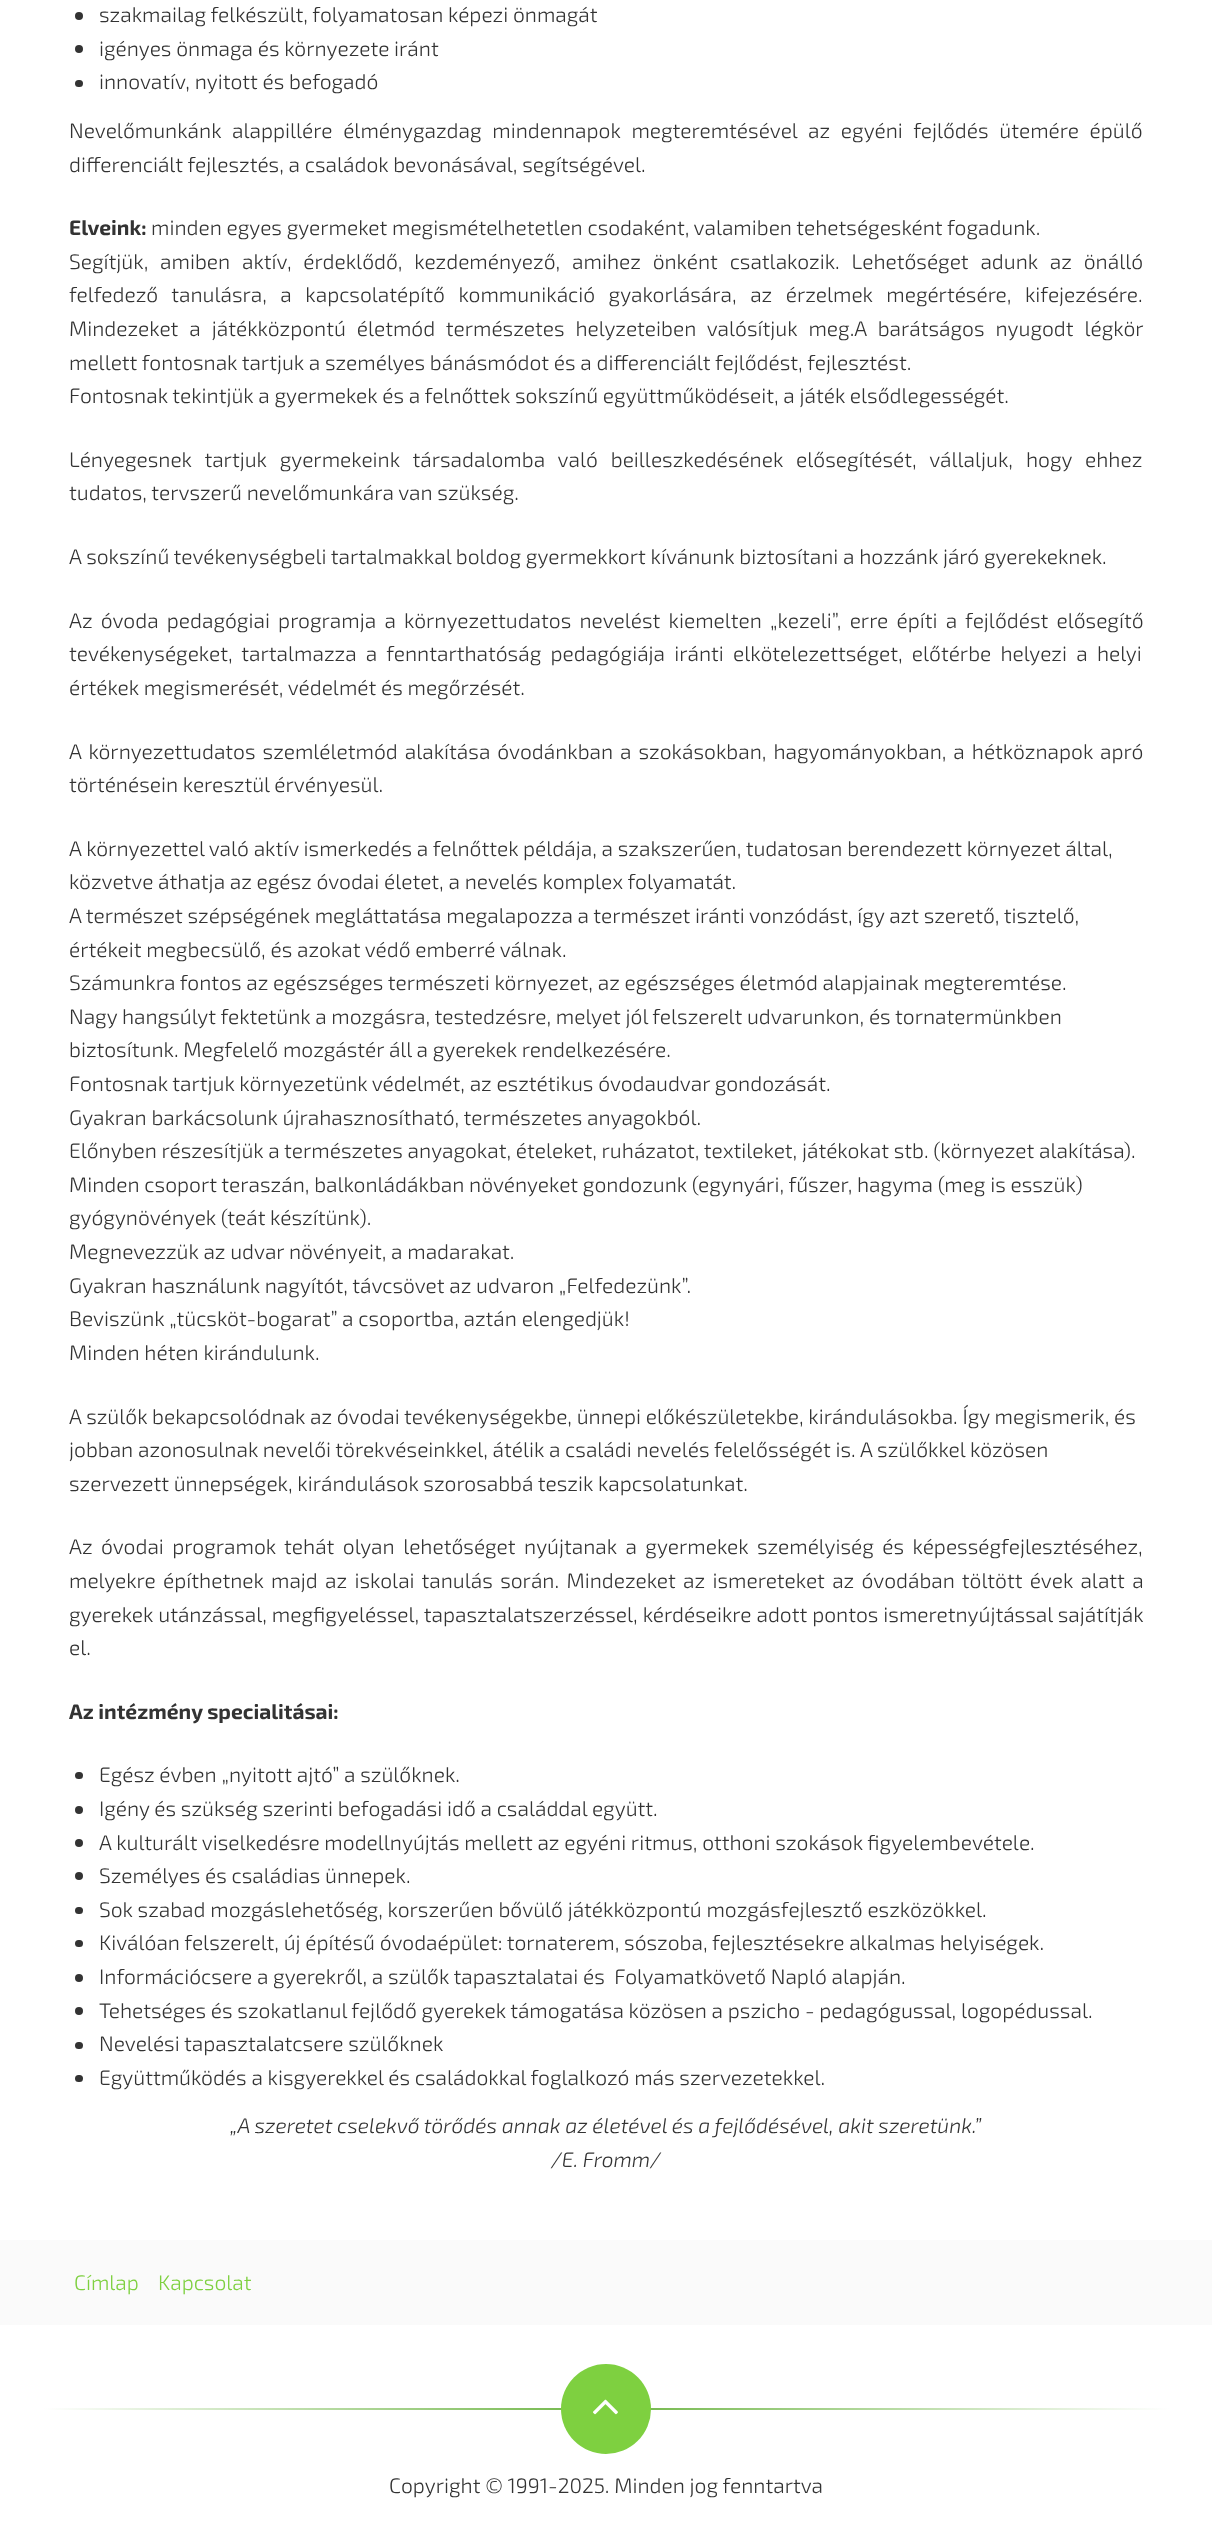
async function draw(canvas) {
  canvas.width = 1212;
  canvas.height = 2525;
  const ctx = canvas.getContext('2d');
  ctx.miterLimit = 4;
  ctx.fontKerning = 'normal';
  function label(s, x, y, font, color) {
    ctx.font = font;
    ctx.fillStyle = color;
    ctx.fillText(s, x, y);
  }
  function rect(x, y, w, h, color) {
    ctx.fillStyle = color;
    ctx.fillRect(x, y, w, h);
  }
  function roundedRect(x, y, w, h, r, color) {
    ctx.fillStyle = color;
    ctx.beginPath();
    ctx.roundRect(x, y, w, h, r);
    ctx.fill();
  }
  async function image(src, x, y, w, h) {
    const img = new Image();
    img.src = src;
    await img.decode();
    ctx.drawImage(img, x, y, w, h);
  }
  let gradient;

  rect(0, 0, 1212, 2525, '#fff');
  ctx.fillStyle = '#333';
  ctx.beginPath();
  ctx.arc(79, 16, 4, 0, 2 * Math.PI);
  ctx.fill();
  label('szakmailag felkészült, folyamatosan képezi önmagát', 99, 22, '300 21px "Exo 2"', '#333');
  ctx.beginPath();
  ctx.arc(79, 49, 4, 0, 2 * Math.PI);
  ctx.fill();
  label('igényes önmaga és környezete iránt', 99, 56, '300 21px "Exo 2"', '#333');
  roundedRect(75, 80, 8, 7, 3.5, '#333');
  label('innovatív, nyitott és befogadó', 99, 89, '300 21px "Exo 2"', '#333');
  ctx.wordSpacing = '6px';
  label('Nevelőmunkánk alappillére élménygazdag mindennapok megteremtésével az egyéni fejlődés ütemére épülő', 69, 138, '300 21px "Exo 2"', '#333');
  ctx.wordSpacing = '0px';
  label('differenciált fejlesztés, a családok bevonásával, segítségével.', 69, 172, '300 21px "Exo 2"', '#333');
  label('Elveink:', 69, 235, 'bold 21px "Exo 2"', '#333');
  label('minden egyes gyermeket megismételhetetlen csodaként, valamiben tehetségesként fogadunk.', 151, 235, '300 21px "Exo 2"', '#333');
  ctx.wordSpacing = '7.1px';
  label('Segítjük, amiben aktív, érdeklődő, kezdeményező, amihez önként csatlakozik. Lehetőséget adunk az önálló', 69, 269, '300 21px "Exo 2"', '#333');
  ctx.wordSpacing = '8.75px';
  label('felfedező tanulásra, a kapcsolatépítő kommunikáció gyakorlására, az érzelmek megértésére, kifejezésére.', 69, 302, '300 21px "Exo 2"', '#333');
  ctx.wordSpacing = '6.25px';
  label('Mindezeket a játékközpontú életmód természetes helyzeteiben valósítjuk meg.A barátságos nyugodt légkör', 69, 336, '300 21px "Exo 2"', '#333');
  ctx.wordSpacing = '0px';
  label('mellett fontosnak tartjuk a személyes bánásmódot és a differenciált fejlődést, fejlesztést.', 69, 370, '300 21px "Exo 2"', '#333');
  label('Fontosnak tekintjük a gyermekek és a felnőttek sokszínű együttműködéseit, a játék elsődlegességét.', 69, 403, '300 21px "Exo 2"', '#333');
  ctx.wordSpacing = '8.25px';
  label('Lényegesnek tartjuk gyermekeink társadalomba való beilleszkedésének elősegítését, vállaljuk, hogy ehhez', 69, 467, '300 21px "Exo 2"', '#333');
  ctx.wordSpacing = '0px';
  label('tudatos, tervszerű nevelőmunkára van szükség.', 69, 500, '300 21px "Exo 2"', '#333');
  label('A sokszínű tevékenységbeli tartalmakkal boldog gyermekkort kívánunk biztosítani a hozzánk járó gyerekeknek.', 69, 564, '300 21px "Exo 2"', '#333');
  ctx.wordSpacing = '3.5px';
  label('Az óvoda pedagógiai programja a környezettudatos nevelést kiemelten „kezeli”, erre építi a fejlődést elősegítő', 69, 628, '300 21px "Exo 2"', '#333');
  ctx.wordSpacing = '4.5px';
  label('tevékenységeket, tartalmazza a fenntarthatóság pedagógiája iránti elkötelezettséget, előtérbe helyezi a helyi', 69, 661, '300 21px "Exo 2"', '#333');
  ctx.wordSpacing = '0px';
  label('értékek megismerését, védelmét és megőrzését.', 69, 695, '300 21px "Exo 2"', '#333');
  ctx.wordSpacing = '2.25px';
  label('A környezettudatos szemléletmód alakítása óvodánkban a szokásokban, hagyományokban, a hétköznapok apró', 69, 759, '300 21px "Exo 2"', '#333');
  ctx.wordSpacing = '0px';
  label('történésein keresztül érvényesül.', 69, 792, '300 21px "Exo 2"', '#333');
  label('A környezettel való aktív ismerkedés a felnőttek példája, a szakszerűen, tudatosan berendezett környezet által,', 69, 856, '300 21px "Exo 2"', '#333');
  label('közvetve áthatja az egész óvodai életet, a nevelés komplex folyamatát.', 69, 889, '300 21px "Exo 2"', '#333');
  label('A természet szépségének megláttatása megalapozza a természet iránti vonzódást, így azt szerető, tisztelő,', 69, 923, '300 21px "Exo 2"', '#333');
  label('értékeit megbecsülő, és azokat védő emberré válnak.', 69, 957, '300 21px "Exo 2"', '#333');
  label('Számunkra fontos az egészséges természeti környezet, az egészséges életmód alapjainak megteremtése.', 69, 990, '300 21px "Exo 2"', '#333');
  label('Nagy hangsúlyt fektetünk a mozgásra, testedzésre, melyet jól felszerelt udvarunkon, és tornatermünkben', 69, 1024, '300 21px "Exo 2"', '#333');
  label('biztosítunk. Megfelelő mozgástér áll a gyerekek rendelkezésére.', 69, 1057, '300 21px "Exo 2"', '#333');
  label('Fontosnak tartjuk környezetünk védelmét, az esztétikus óvodaudvar gondozását.', 69, 1091, '300 21px "Exo 2"', '#333');
  label('Gyakran barkácsolunk újrahasznosítható, természetes anyagokból.', 69, 1125, '300 21px "Exo 2"', '#333');
  label('Előnyben részesítjük a természetes anyagokat, ételeket, ruházatot, textileket, játékokat stb. (környezet alakítása).', 69, 1158, '300 21px "Exo 2"', '#333');
  label('Minden csoport teraszán, balkonládákban növényeket gondozunk (egynyári, fűszer, hagyma (meg is esszük)', 69, 1192, '300 21px "Exo 2"', '#333');
  label('gyógynövények (teát készítünk).', 69, 1225, '300 21px "Exo 2"', '#333');
  label('Megnevezzük az udvar növényeit, a madarakat.', 69, 1259, '300 21px "Exo 2"', '#333');
  label('Gyakran használunk nagyítót, távcsövet az udvaron „Felfedezünk”.', 69, 1293, '300 21px "Exo 2"', '#333');
  label('Beviszünk „tücsköt-bogarat” a csoportba, aztán elengedjük!', 69, 1326, '300 21px "Exo 2"', '#333');
  label('Minden héten kirándulunk.', 69, 1360, '300 21px "Exo 2"', '#333');
  label('A szülők bekapcsolódnak az óvodai tevékenységekbe, ünnepi előkészületekbe, kirándulásokba. Így megismerik, és', 69, 1424, '300 21px "Exo 2"', '#333');
  label('jobban azonosulnak nevelői törekvéseinkkel, átélik a családi nevelés felelősségét is. A szülőkkel közösen', 69, 1457, '300 21px "Exo 2"', '#333');
  label('szervezett ünnepségek, kirándulások szorosabbá teszik kapcsolatunkat.', 69, 1491, '300 21px "Exo 2"', '#333');
  ctx.wordSpacing = '3.75px';
  label('Az óvodai programok tehát olyan lehetőséget nyújtanak a gyermekek személyiség és képességfejlesztéséhez,', 69, 1554, '300 21px "Exo 2"', '#333');
  ctx.wordSpacing = '2.6px';
  label('melyekre építhetnek majd az iskolai tanulás során. Mindezeket az ismereteket az óvodában töltött évek alatt a', 69, 1588, '300 21px "Exo 2"', '#333');
  ctx.wordSpacing = '0.25px';
  label('gyerekek utánzással, megfigyeléssel, tapasztalatszerzéssel, kérdéseikre adott pontos ismeretnyújtással sajátítják', 69, 1622, '300 21px "Exo 2"', '#333');
  ctx.wordSpacing = '0px';
  label('el.', 69, 1655, '300 21px "Exo 2"', '#333');
  label('Az intézmény specialitásai:', 69, 1719, 'bold 21px "Exo 2"', '#333');
  roundedRect(75, 1772, 8, 7, 3.5, '#333');
  label('Egész évben „nyitott ajtó” a szülőknek.', 99, 1782, '300 21px "Exo 2"', '#333');
  ctx.beginPath();
  ctx.arc(79, 1810, 4, 0, 2 * Math.PI);
  ctx.fill();
  label('Igény és szükség szerinti befogadási idő a családdal együtt.', 99, 1816, '300 21px "Exo 2"', '#333');
  ctx.beginPath();
  ctx.arc(79, 1843, 4, 0, 2 * Math.PI);
  ctx.fill();
  label('A kulturált viselkedésre modellnyújtás mellett az egyéni ritmus, otthoni szokások figyelembevétele.', 99, 1850, '300 21px "Exo 2"', '#333');
  ctx.beginPath();
  ctx.arc(79, 1876, 4, 0, 2 * Math.PI);
  ctx.fill();
  label('Személyes és családias ünnepek.', 99, 1883, '300 21px "Exo 2"', '#333');
  roundedRect(75, 1907, 8, 7, 3.5, '#333');
  label('Sok szabad mozgáslehetőség, korszerűen bővülő játékközpontú mozgásfejlesztő eszközökkel.', 99, 1917, '300 21px "Exo 2"', '#333');
  roundedRect(75, 1940, 8, 7, 3.5, '#333');
  label('Kiválóan felszerelt, új építésű óvodaépület: tornaterem, sószoba, fejlesztésekre alkalmas helyiségek.', 99, 1950, '300 21px "Exo 2"', '#333');
  ctx.beginPath();
  ctx.arc(79, 1978, 4, 0, 2 * Math.PI);
  ctx.fill();
  label('Információcsere a gyerekről, a szülők tapasztalatai és  Folyamatkövető Napló alapján.', 99, 1984, '300 21px "Exo 2"', '#333');
  ctx.beginPath();
  ctx.arc(79, 2011, 4, 0, 2 * Math.PI);
  ctx.fill();
  label('Tehetséges és szokatlanul fejlődő gyerekek támogatása közösen a pszicho - pedagógussal, logopédussal.', 99, 2018, '300 21px "Exo 2"', '#333');
  roundedRect(75, 2042, 8, 7, 3.5, '#333');
  label('Nevelési tapasztalatcsere szülőknek', 99, 2051, '300 21px "Exo 2"', '#333');
  roundedRect(75, 2075, 8, 7, 3.5, '#333');
  label('Együttműködés a kisgyerekkel és családokkal foglalkozó más szervezetekkel.', 99, 2085, '300 21px "Exo 2"', '#333');
  label('„A szeretet cselekvő törődés annak az életével és a fejlődésével, akit szeretünk.”', 230, 2133, 'italic 300 21px "Exo 2"', '#333');
  label('/E. Fromm/', 551, 2167, 'italic 300 21px "Exo 2"', '#333');
  rect(0, 2240, 1212, 85, '#fafafa');
  label('Címlap', 74, 2290, '300 21px "Exo 2"', '#7ed040');
  label('Kapcsolat', 158, 2290, '300 21px "Exo 2"', '#7ed040');
  gradient = ctx.createLinearGradient(44, 2408, 1169, 2408);
  gradient.addColorStop(0, '#fff');
  gradient.addColorStop(0.5, '#6eb545');
  gradient.addColorStop(1, '#fff');
  ctx.fillStyle = gradient;
  ctx.fillRect(44, 2408, 1125, 2);
  ctx.fillStyle = '#7ed040';
  ctx.beginPath();
  ctx.arc(606, 2409, 45, 0, 2 * Math.PI);
  ctx.fill();
  await image('assets/img1.png', 593, 2399, 25, 16);
  label('Copyright © 1991-2025. Minden jog fenntartva', 389, 2493, '300 21px "Exo 2"', '#333');
}

draw(document.querySelector('canvas'));
